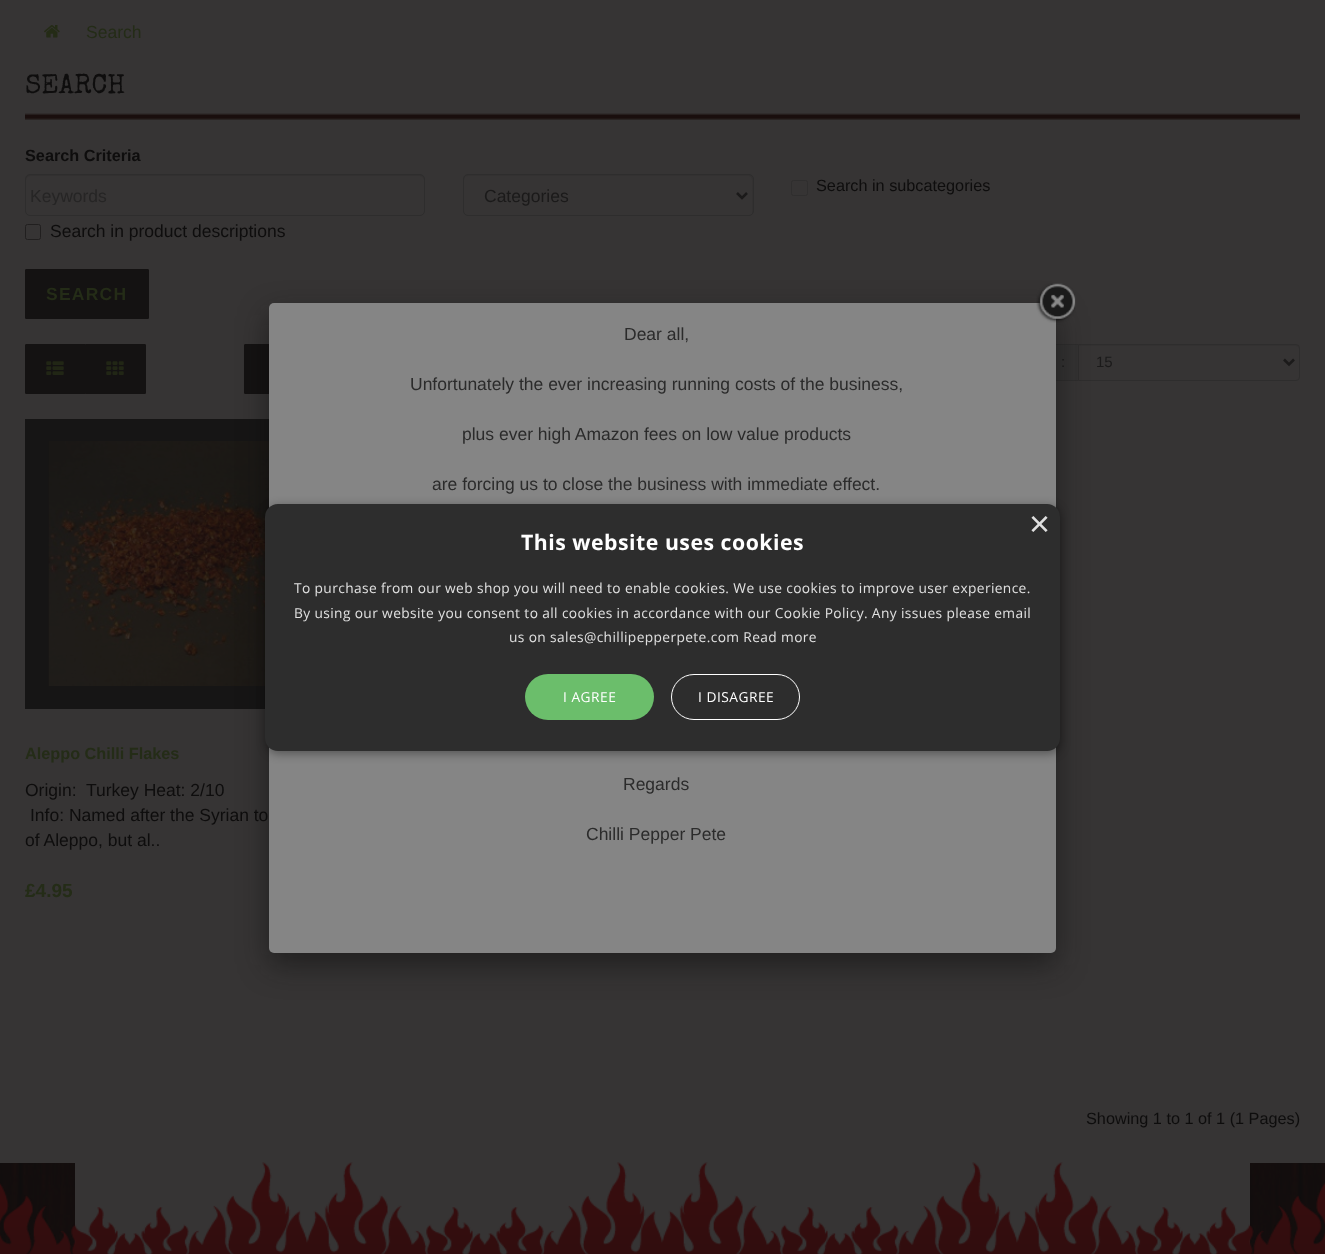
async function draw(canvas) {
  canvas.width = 1325;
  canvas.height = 1254;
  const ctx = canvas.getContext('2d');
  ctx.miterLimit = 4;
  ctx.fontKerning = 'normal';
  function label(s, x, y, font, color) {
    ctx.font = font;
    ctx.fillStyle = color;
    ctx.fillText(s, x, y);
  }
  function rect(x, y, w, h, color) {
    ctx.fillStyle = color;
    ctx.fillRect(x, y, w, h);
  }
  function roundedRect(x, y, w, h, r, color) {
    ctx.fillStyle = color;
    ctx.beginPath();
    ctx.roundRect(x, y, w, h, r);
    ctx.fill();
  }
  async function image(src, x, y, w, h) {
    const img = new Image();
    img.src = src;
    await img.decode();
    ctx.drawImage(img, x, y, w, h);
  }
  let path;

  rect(0, 0, 1325, 1254, '#fff');
  await image('assets/img1.png', 0, 1163, 1325, 91);
  rect(0, 0, 1325, 1163, '#363434');
  await image('assets/img2.png', 44, 25, 16, 13);
  label('Search', 86, 38, '17.5px Liberation Sans', '#242c17');
  await image('assets/img3.png', 25, 113, 1275, 7);
  label('SEARCH', 25, 93, '27.5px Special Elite', '#0e0d0d');
  label('Search Criteria', 25, 161, 'bold 16.25px Liberation Sans', '#0e0d0d');
  ctx.beginPath();
  ctx.roundRect(791.5, 180.5, 16, 15, 2);
  ctx.strokeStyle = '#2f2e2e';
  ctx.stroke();
  label('Search in subcategories', 816, 191, '16.25px Liberation Sans', '#0e0d0d');
  ctx.fillStyle = '#323030';
  path = new Path2D('M30 176H420C422 176 424 178 424 180C424 177 423 175 420 175H30C27 175 26 177 26 180C26 178 28 176 30 176Z');
  ctx.fill(path);
  ctx.beginPath();
  ctx.roundRect(25.5, 174.5, 399, 41, 4.5);
  ctx.strokeStyle = '#2e2d2d';
  ctx.stroke();
  ctx.save();
  ctx.beginPath();
  ctx.rect(30, 185, 390, 20);
  ctx.clip();
  label('Keywords', 30, 202, '17.5px Liberation Sans', '#262525');
  ctx.restore();
  ctx.fillStyle = '#333131';
  path = new Path2D('M468 176H749C754 176 752 189 752 191V214C753 213 753 212 753 211V179C753 177 751 175 749 175H468C466 175 464 177 464 179V180C464 178 465 176 468 176Z');
  ctx.fill(path);
  ctx.beginPath();
  ctx.roundRect(463.5, 174.5, 290, 41, 4.5);
  ctx.stroke();
  path = new Path2D('M737 193L742 198L747 193');
  ctx.strokeStyle = '#1b1a1a';
  ctx.lineWidth = 2.5;
  ctx.stroke(path);
  label('Categories', 484, 202, '17.5px Liberation Sans', '#1b1a1a');
  ctx.beginPath();
  ctx.roundRect(25.5, 224.5, 15, 15, 2);
  ctx.strokeStyle = '#211f1f';
  ctx.lineWidth = 1;
  ctx.stroke();
  label('Search in product descriptions', 50, 237, '17.5px Liberation Sans', '#0e0d0d');
  ctx.fillStyle = '#141212';
  ctx.beginPath();
  ctx.roundRect(25.5, 269.5, 123, 49, 0.5);
  ctx.fill();
  ctx.strokeStyle = '#141212';
  ctx.stroke();
  ctx.letterSpacing = '1.25px';
  label('SEARCH', 46, 300, 'bold 17.5px Liberation Sans', '#242c17');
  ctx.fillStyle = '#141212';
  ctx.beginPath();
  ctx.roundRect(25.5, 344.5, 60, 49, 0.5);
  ctx.fill();
  ctx.stroke();
  await image('assets/img4.png', 46, 361, 18, 14);
  ctx.beginPath();
  ctx.roundRect(85.5, 344.5, 60, 49, 0.5);
  ctx.fill();
  ctx.stroke();
  await image('assets/img5.png', 106, 361, 18, 14);
  ctx.beginPath();
  ctx.roundRect(244.5, 344.5, 271, 49, 0.5);
  ctx.fill();
  ctx.stroke();
  rect(1056, 345, 22, 35, '#333232');
  ctx.fillStyle = '#2e2d2d';
  path = new Path2D('M1014 344H1078V381H1014C1012 381 1010 380 1010 378V348C1010 345 1012 344 1014 344ZM1014 345H1078V380H1014C1012 380 1011 379 1011 378V348C1011 346 1012 345 1014 345Z');
  ctx.fill(path, 'evenodd');
  ctx.letterSpacing = '0px';
  label(':', 1061, 367, '15px Liberation Sans', '#1b1a1a');
  ctx.fillStyle = '#333131';
  path = new Path2D('M1079 346H1296C1298 346 1299 347 1299 349C1299 347 1299 345 1296 345H1079Z');
  ctx.fill(path);
  ctx.beginPath();
  ctx.roundRect(1078.5, 344.5, 221, 36, [0, 3.5, 3.5, 0]);
  ctx.strokeStyle = '#2e2d2d';
  ctx.stroke();
  path = new Path2D('M1284 359.5L1289 364.5L1294 359.5');
  ctx.strokeStyle = '#1b1a1a';
  ctx.lineWidth = 2.5;
  ctx.stroke(path);
  label('15', 1096, 367, '15px Liberation Sans', '#1b1a1a');
  rect(25, 419, 244, 290, '#161515');
  await image('assets/img6.png', 48, 441, 221, 245);
  label('Aleppo Chilli Flakes', 25, 759, 'bold 16.25px Liberation Sans', '#242c17');
  label('Origin:  Turkey Heat: 2/10', 25, 796, '17.5px Liberation Sans', '#0e0d0d');
  label('Info: Named after the Syrian to', 30, 821, '17.5px Liberation Sans', '#0e0d0d');
  label('of Aleppo, but al..', 25, 846, '17.5px Liberation Sans', '#0e0d0d');
  label('£4.95', 25, 897, 'bold 19px Liberation Sans', '#242c17');
  label('Showing 1 to 1 of 1 (1 Pages)', 1086, 1124, '16.25px Liberation Sans', '#0e0d0d');
  rect(75, 1163, 1175, 91, '#363434');
  await image('assets/img7.png', 0, 1162, 1325, 92);
  ctx.fillStyle = '#09090980';
  ctx.filter = 'blur(15.5px)';
  ctx.beginPath();
  ctx.roundRect(269, 315, 787, 650, 5);
  ctx.fill();
  ctx.filter = 'none';
  roundedRect(269, 303, 787, 650, 5, '#858585');
  await image('assets/img8.png', 1036, 283, 40, 40);
  label('Dear all,', 624, 340, '17.5px Liberation Sans', '#2b2b2b');
  label('Unfortunately the ever increasing running costs of the business,', 410, 390, '17.5px Liberation Sans', '#2b2b2b');
  label('plus ever high Amazon fees on low value products', 462, 440, '17.5px Liberation Sans', '#2b2b2b');
  label('are forcing us to close the business with immediate effect.', 432, 490, '17.5px Liberation Sans', '#2b2b2b');
  label('Regards', 623, 790, '17.5px Liberation Sans', '#2b2b2b');
  label('Chilli Pepper Pete', 586, 840, '17.5px Liberation Sans', '#2b2b2b');
  ctx.fillStyle = '#00000059';
  ctx.filter = 'blur(5px)';
  ctx.beginPath();
  ctx.roundRect(266, 506, 795, 248, 13);
  ctx.fill();
  ctx.filter = 'none';
  roundedRect(265, 504, 795, 247, 13, '#2d2d2d');
  label('×', 1029, 536, '36px Liberation Sans', '#e0e0e0');
  ctx.letterSpacing = '0.5px';
  label('This website uses cookies', 521, 550, 'bold 21.25px Open Sans', '#fff');
  ctx.letterSpacing = '0.38px';
  label('To purchase from our web shop you will need to enable cookies. We use cookies to improve user experience.', 294, 593, '13.75px Open Sans', '#e0e0e0');
  label('By using our website you consent to all cookies in accordance with our Cookie Policy. Any issues please email', 294, 618, '13.75px Open Sans', '#e0e0e0');
  label('us on sales@chillipepperpete.com Read more', 509, 642, '13.75px Open Sans', '#e0e0e0');
  roundedRect(525, 674, 129, 46, 23, '#6bbe6b');
  ctx.letterSpacing = '0.5px';
  label('I AGREE', 563, 702, '13.75px Open Sans', '#fff');
  ctx.beginPath();
  ctx.roundRect(671.5, 674.5, 128, 45, 22.5);
  ctx.strokeStyle = '#fff';
  ctx.lineWidth = 1;
  ctx.stroke();
  label('I DISAGREE', 698, 702, '13.75px Open Sans', '#fff');
}

draw(document.querySelector('canvas'));
